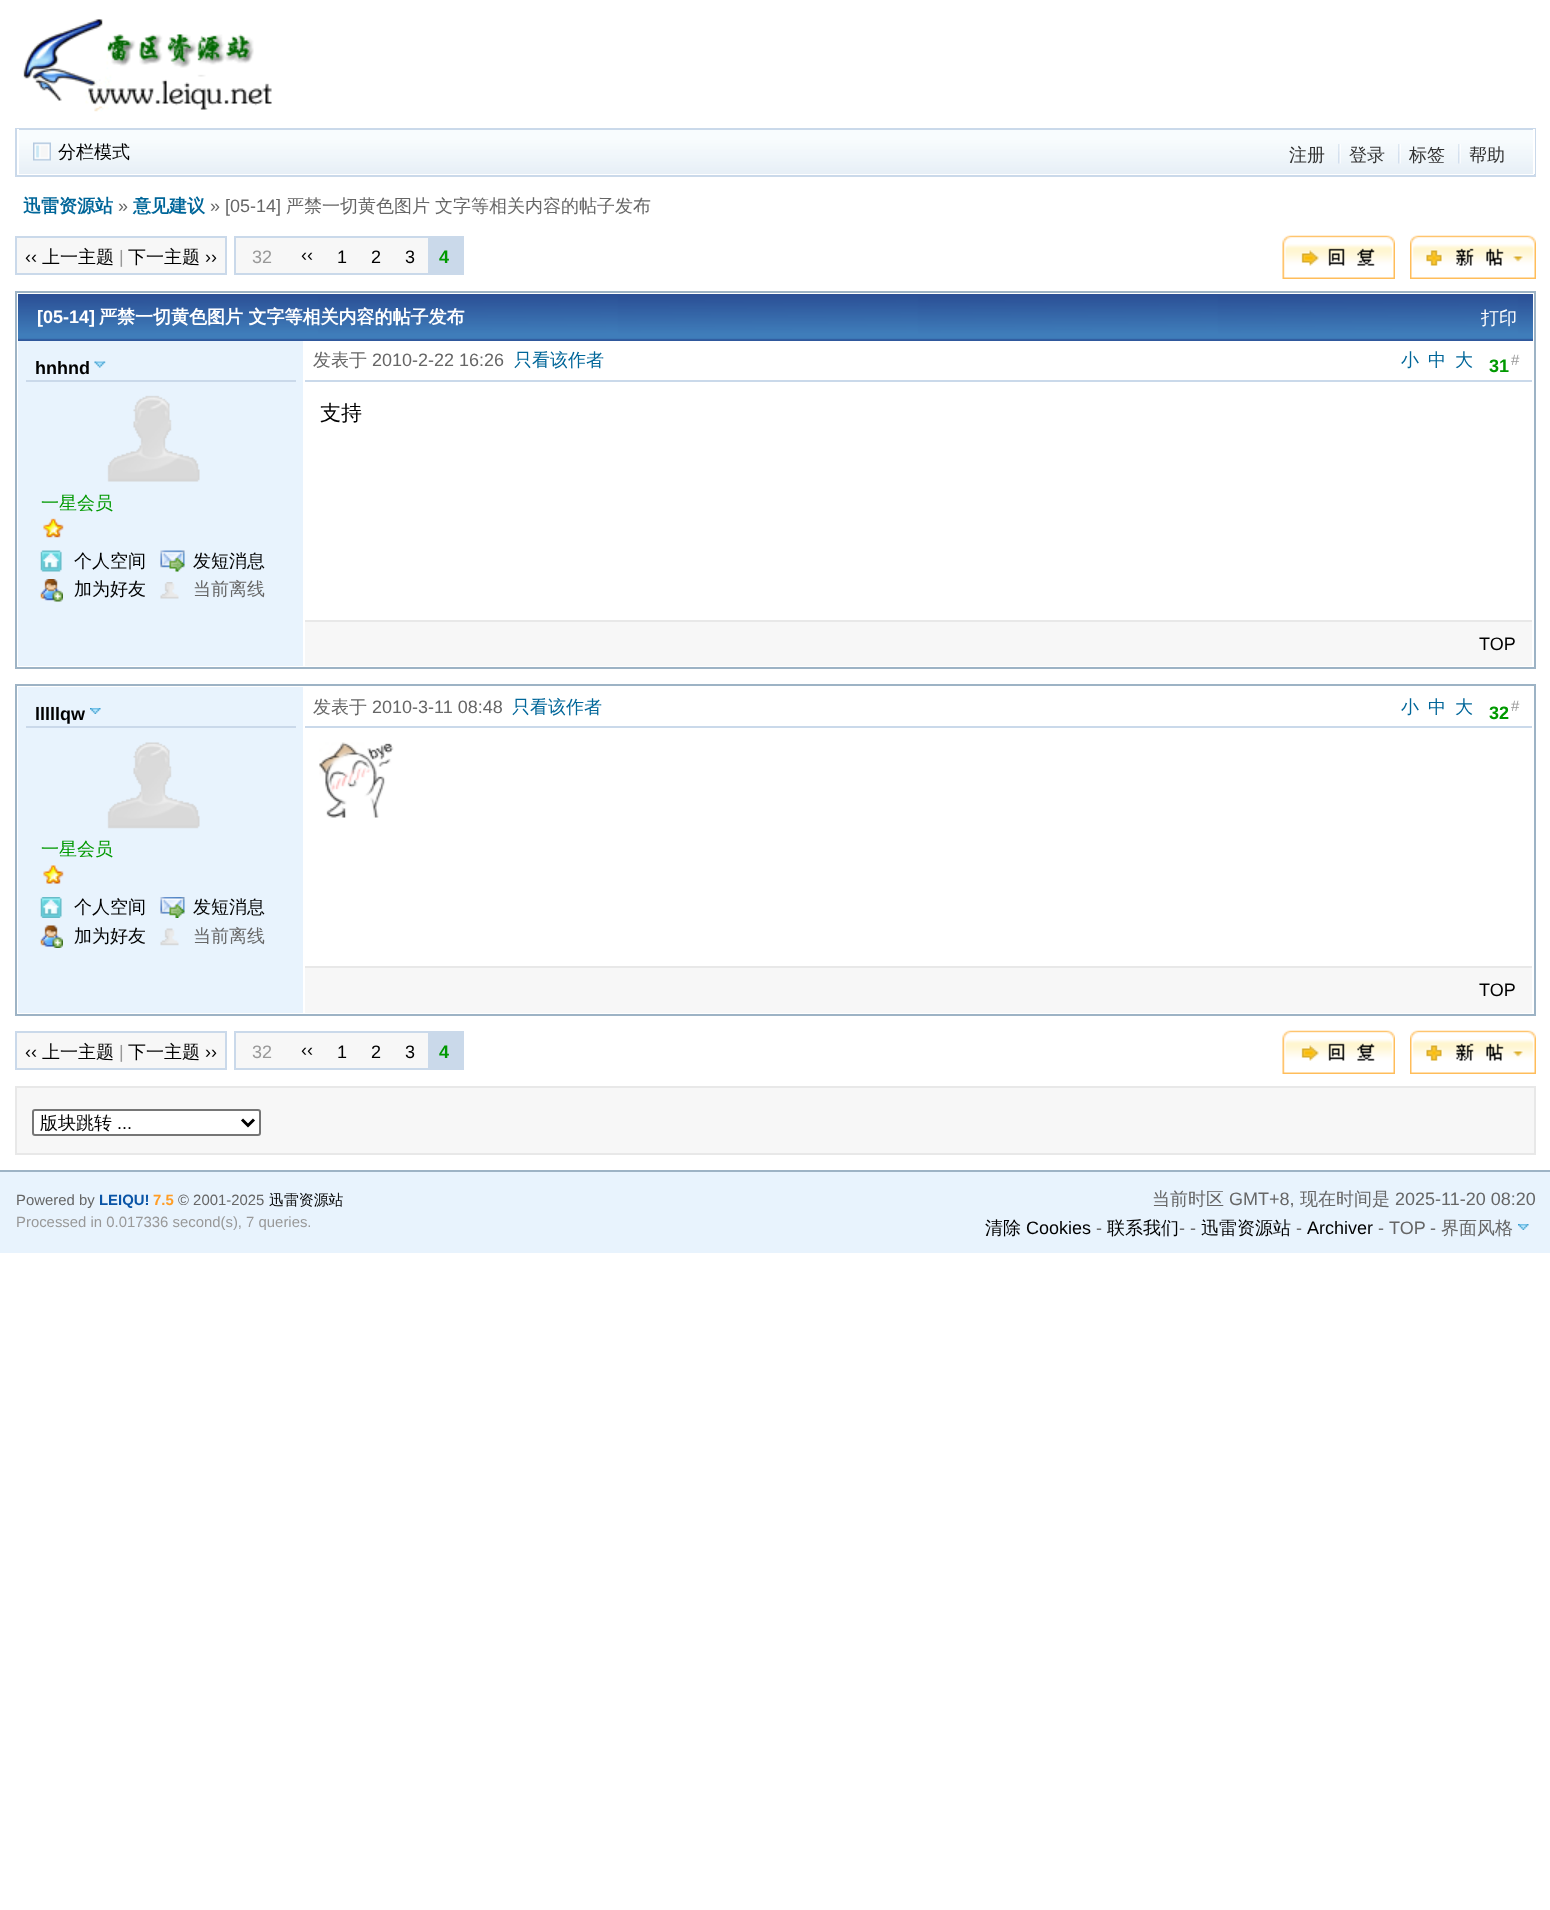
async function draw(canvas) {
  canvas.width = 1550;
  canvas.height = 1910;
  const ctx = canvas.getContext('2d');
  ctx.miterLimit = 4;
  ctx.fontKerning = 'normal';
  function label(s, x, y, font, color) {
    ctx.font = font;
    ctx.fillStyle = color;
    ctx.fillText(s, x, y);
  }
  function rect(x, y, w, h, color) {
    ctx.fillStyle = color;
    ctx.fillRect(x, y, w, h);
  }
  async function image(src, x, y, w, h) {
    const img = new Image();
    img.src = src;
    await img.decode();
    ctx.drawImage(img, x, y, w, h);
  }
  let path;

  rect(0, 0, 1550, 1910, '#fff');
  await image('assets/img1.png', 23, 19, 249, 93);
  await image('assets/img2.png', 19, 130, 1514, 44);
  ctx.strokeStyle = '#cad9ea';
  ctx.lineWidth = 2;
  ctx.strokeRect(16, 129, 1519, 47);
  rect(17, 129, 2, 1, '#fff');
  await image('assets/img3.png', 33, 142, 18, 19);
  label('分栏模式', 58, 158, '500 18px WenQuanYi Zen Hei', '#000');
  rect(1533, 129, 2, 45, '#fff');
  label('注册', 1289, 161, '500 18px WenQuanYi Zen Hei', '#333');
  await image('assets/img4.png', 1338, 144, 3, 20);
  label('登录', 1349, 161, '500 18px WenQuanYi Zen Hei', '#333');
  await image('assets/img5.png', 1398, 144, 3, 20);
  label('标签', 1409, 161, '500 18px WenQuanYi Zen Hei', '#333');
  await image('assets/img5.png', 1458, 144, 3, 20);
  label('帮助', 1469, 161, '500 18px WenQuanYi Zen Hei', '#333');
  label('迅雷资源站', 23, 212, 'bold 18px WenQuanYi Zen Hei', '#069');
  label('»', 118, 212, '18px Liberation Sans', '#666');
  label('意见建议', 133, 212, 'bold 18px WenQuanYi Zen Hei', '#069');
  label('» [05-14]', 210, 212, '18px Liberation Sans', '#666');
  label('严禁一切黄色图片', 286, 212, '500 18px WenQuanYi Zen Hei', '#666');
  label('文字等相关内容的帖子发布', 435, 212, '500 18px WenQuanYi Zen Hei', '#666');
  ctx.fillStyle = '#f7f7f7';
  ctx.beginPath();
  ctx.rect(16, 237, 210, 37);
  ctx.fill();
  ctx.stroke();
  label('‹‹', 25, 263, '18px Liberation Sans', '#000');
  label('上一主题', 42, 263, '500 18px WenQuanYi Zen Hei', '#000');
  label('|', 119, 263, '18px Liberation Sans', '#999');
  label('下一主题', 128, 263, '500 18px WenQuanYi Zen Hei', '#000');
  label('››', 205, 263, '18px Liberation Sans', '#000');
  rect(236, 238, 192, 35, '#f7f7f7');
  ctx.strokeRect(235, 237, 228, 37);
  label('32', 252, 263, '18px Liberation Sans', '#999');
  label('‹‹', 301, 261, '18px Liberation Sans', '#000');
  label('1', 337, 263, '18px Liberation Sans', '#000');
  label('2', 371, 263, '18px Liberation Sans', '#000');
  label('3', 405, 263, '18px Liberation Sans', '#000');
  rect(428, 238, 34, 35, '#cad9ea');
  label('4', 439, 263, 'bold 18px Liberation Sans', '#090');
  await image('assets/img6.png', 1282, 235, 113, 44);
  await image('assets/img7.png', 1410, 235, 126, 44);
  ctx.strokeStyle = '#9db3c5';
  ctx.strokeRect(16, 292, 1519, 376);
  rect(18, 340, 1515, 1, '#2f589c');
  await image('assets/img8.png', 18, 294, 1515, 46);
  label('[05-14]', 37, 323, 'bold 18px Liberation Sans', '#fff');
  label('严禁一切黄色图片 文字等相关内容的帖子发布', 99, 323, 'bold 18px WenQuanYi Zen Hei', '#fff');
  label('打印', 1481, 324, '500 18px WenQuanYi Zen Hei', '#fff');
  rect(18, 341, 285, 325, '#e8f3fd');
  rect(26, 380, 270, 2, '#cad9ea');
  await image('assets/img9.png', 94, 361, 12, 7);
  label('hnhnd', 35, 374, 'bold 18px Liberation Sans', '#000');
  await image('assets/img10.png', 107, 395, 93, 87);
  label('一星会员', 41, 509, '500 18px WenQuanYi Zen Hei', '#090');
  await image('assets/img11.png', 43, 518, 21, 20);
  await image('assets/img12.png', 40, 550, 22, 22);
  label('个人空间', 74, 567, '500 18px WenQuanYi Zen Hei', '#000');
  await image('assets/img13.png', 160, 550, 25, 22);
  label('发短消息', 193, 567, '500 18px WenQuanYi Zen Hei', '#000');
  await image('assets/img14.png', 40, 579, 23, 23);
  label('加为好友', 74, 595, '500 18px WenQuanYi Zen Hei', '#000');
  await image('assets/img15.png', 160, 582, 19, 17);
  label('当前离线', 193, 595, '500 18px WenQuanYi Zen Hei', '#666');
  rect(305, 380, 1227, 2, '#cad9ea');
  label('发表于', 313, 366, '500 18px WenQuanYi Zen Hei', '#666');
  label('2010-2-22 16:26', 372, 366, '18px Liberation Sans', '#666');
  label('只看该作者', 514, 366, '500 18px WenQuanYi Zen Hei', '#069');
  label('小', 1401, 366, '500 18px WenQuanYi Zen Hei', '#069');
  label('中', 1428, 366, '500 18px WenQuanYi Zen Hei', '#069');
  label('大', 1455, 366, '500 18px WenQuanYi Zen Hei', '#069');
  label('31', 1489, 372, 'bold 18px Liberation Sans', '#090');
  label('#', 1511, 365, '15px Liberation Sans', '#999');
  label('支持', 320, 420, '500 21px WenQuanYi Zen Hei', '#000');
  rect(305, 622, 1227, 44, '#f7f7f7');
  rect(305, 620, 1227, 2, '#e8e8e8');
  label('TOP', 1479, 650, '18px Liberation Sans', '#000');
  ctx.strokeRect(16, 685, 1519, 330);
  rect(18, 687, 285, 326, '#e8f3fd');
  rect(26, 726, 270, 2, '#cad9ea');
  await image('assets/img16.png', 90, 708, 11, 6);
  label('lllllqw', 35, 720, 'bold 18px Liberation Sans', '#000');
  await image('assets/img17.png', 107, 742, 93, 87);
  label('一星会员', 41, 855, '500 18px WenQuanYi Zen Hei', '#090');
  await image('assets/img18.png', 43, 865, 21, 19);
  await image('assets/img19.png', 40, 897, 22, 21);
  label('个人空间', 74, 913, '500 18px WenQuanYi Zen Hei', '#000');
  await image('assets/img20.png', 160, 897, 25, 21);
  label('发短消息', 193, 913, '500 18px WenQuanYi Zen Hei', '#000');
  await image('assets/img21.png', 40, 925, 23, 23);
  label('加为好友', 74, 942, '500 18px WenQuanYi Zen Hei', '#000');
  await image('assets/img22.png', 160, 928, 19, 18);
  label('当前离线', 193, 942, '500 18px WenQuanYi Zen Hei', '#666');
  rect(305, 726, 1227, 2, '#cad9ea');
  label('发表于', 313, 713, '500 18px WenQuanYi Zen Hei', '#666');
  label('2010-3-11 08:48', 372, 713, '18px Liberation Sans', '#666');
  label('只看该作者', 512, 713, '500 18px WenQuanYi Zen Hei', '#069');
  label('小', 1401, 713, '500 18px WenQuanYi Zen Hei', '#069');
  label('中', 1428, 713, '500 18px WenQuanYi Zen Hei', '#069');
  label('大', 1455, 713, '500 18px WenQuanYi Zen Hei', '#069');
  label('32', 1489, 719, 'bold 18px Liberation Sans', '#090');
  label('#', 1511, 711, '15px Liberation Sans', '#999');
  await image('assets/img23.png', 319, 742, 75, 76);
  rect(305, 968, 1227, 45, '#f7f7f7');
  rect(305, 966, 1227, 2, '#e8e8e8');
  label('TOP', 1479, 996, '18px Liberation Sans', '#000');
  ctx.fillStyle = '#f7f7f7';
  ctx.beginPath();
  ctx.rect(16, 1032, 210, 37);
  ctx.fill();
  ctx.strokeStyle = '#cad9ea';
  ctx.stroke();
  label('‹‹', 25, 1058, '18px Liberation Sans', '#000');
  label('上一主题', 42, 1058, '500 18px WenQuanYi Zen Hei', '#000');
  label('|', 119, 1058, '18px Liberation Sans', '#999');
  label('下一主题', 128, 1058, '500 18px WenQuanYi Zen Hei', '#000');
  label('››', 205, 1058, '18px Liberation Sans', '#000');
  rect(236, 1033, 192, 35, '#f7f7f7');
  ctx.strokeRect(235, 1032, 228, 37);
  label('32', 252, 1058, '18px Liberation Sans', '#999');
  label('‹‹', 301, 1056, '18px Liberation Sans', '#000');
  label('1', 337, 1058, '18px Liberation Sans', '#000');
  label('2', 371, 1058, '18px Liberation Sans', '#000');
  label('3', 405, 1058, '18px Liberation Sans', '#000');
  rect(428, 1033, 34, 35, '#cad9ea');
  label('4', 439, 1058, 'bold 18px Liberation Sans', '#090');
  await image('assets/img6.png', 1282, 1030, 113, 44);
  await image('assets/img7.png', 1410, 1030, 126, 44);
  ctx.fillStyle = '#f7f7f7';
  ctx.beginPath();
  ctx.rect(16, 1087, 1519, 67);
  ctx.fill();
  ctx.strokeStyle = '#e8e8e8';
  ctx.stroke();
  ctx.fillStyle = '#fff';
  ctx.beginPath();
  ctx.roundRect(33, 1110, 227, 25, 2);
  ctx.fill();
  ctx.strokeStyle = '#767676';
  ctx.stroke();
  path = new Path2D('M242 1119.5L248 1125.5L254 1119.5');
  ctx.strokeStyle = '#000';
  ctx.lineWidth = 3;
  ctx.stroke(path);
  label('版块跳转', 40, 1129, '500 18px WenQuanYi Zen Hei', '#000');
  label('...', 117, 1129, '18px Liberation Sans', '#000');
  rect(0, 1172, 1550, 81, '#e8f3fd');
  rect(0, 1170, 1550, 2, '#9db3c5');
  label('Powered by', 16, 1205, '14.9px Liberation Sans', '#666');
  label('LEIQU!', 99, 1205, 'bold 14.9px Liberation Sans', '#0954a6');
  label('7.5', 153, 1205, 'bold 14.9px Liberation Sans', '#ff9d25');
  label('© 2001-2025', 178, 1205, '14.9px Liberation Sans', '#666');
  label('迅雷资源站', 269, 1205, '500 14.9px WenQuanYi Zen Hei', '#000');
  label('当前时区', 1152, 1205, '500 18px WenQuanYi Zen Hei', '#666');
  label('GMT+8,', 1229, 1205, '18px Liberation Sans', '#666');
  label('现在时间是', 1300, 1205, '500 18px WenQuanYi Zen Hei', '#666');
  label('2025-11-20 08:20', 1395, 1205, '18px Liberation Sans', '#666');
  label('清除', 985, 1234, '500 18px WenQuanYi Zen Hei', '#000');
  label('Cookies', 1026, 1234, '18px Liberation Sans', '#000');
  label('-', 1096, 1234, '18px Liberation Sans', '#666');
  label('联系我们', 1107, 1234, '500 18px WenQuanYi Zen Hei', '#000');
  label('- -', 1179, 1234, '18px Liberation Sans', '#666');
  label('迅雷资源站', 1201, 1234, '500 18px WenQuanYi Zen Hei', '#000');
  label('-', 1296, 1234, '18px Liberation Sans', '#666');
  label('Archiver', 1307, 1234, '18px Liberation Sans', '#000');
  label('-', 1378, 1234, '18px Liberation Sans', '#666');
  label('TOP', 1389, 1234, '18px Liberation Sans', '#666');
  label('-', 1430, 1234, '18px Liberation Sans', '#666');
  label('界面风格', 1441, 1234, '500 18px WenQuanYi Zen Hei', '#666');
  await image('assets/img24.png', 1518, 1224, 11, 6);
  label('Processed in 0.017336 second(s), 7 queries.', 16, 1227, '14.9px Liberation Sans', '#999');
}

draw(document.querySelector('canvas'));
